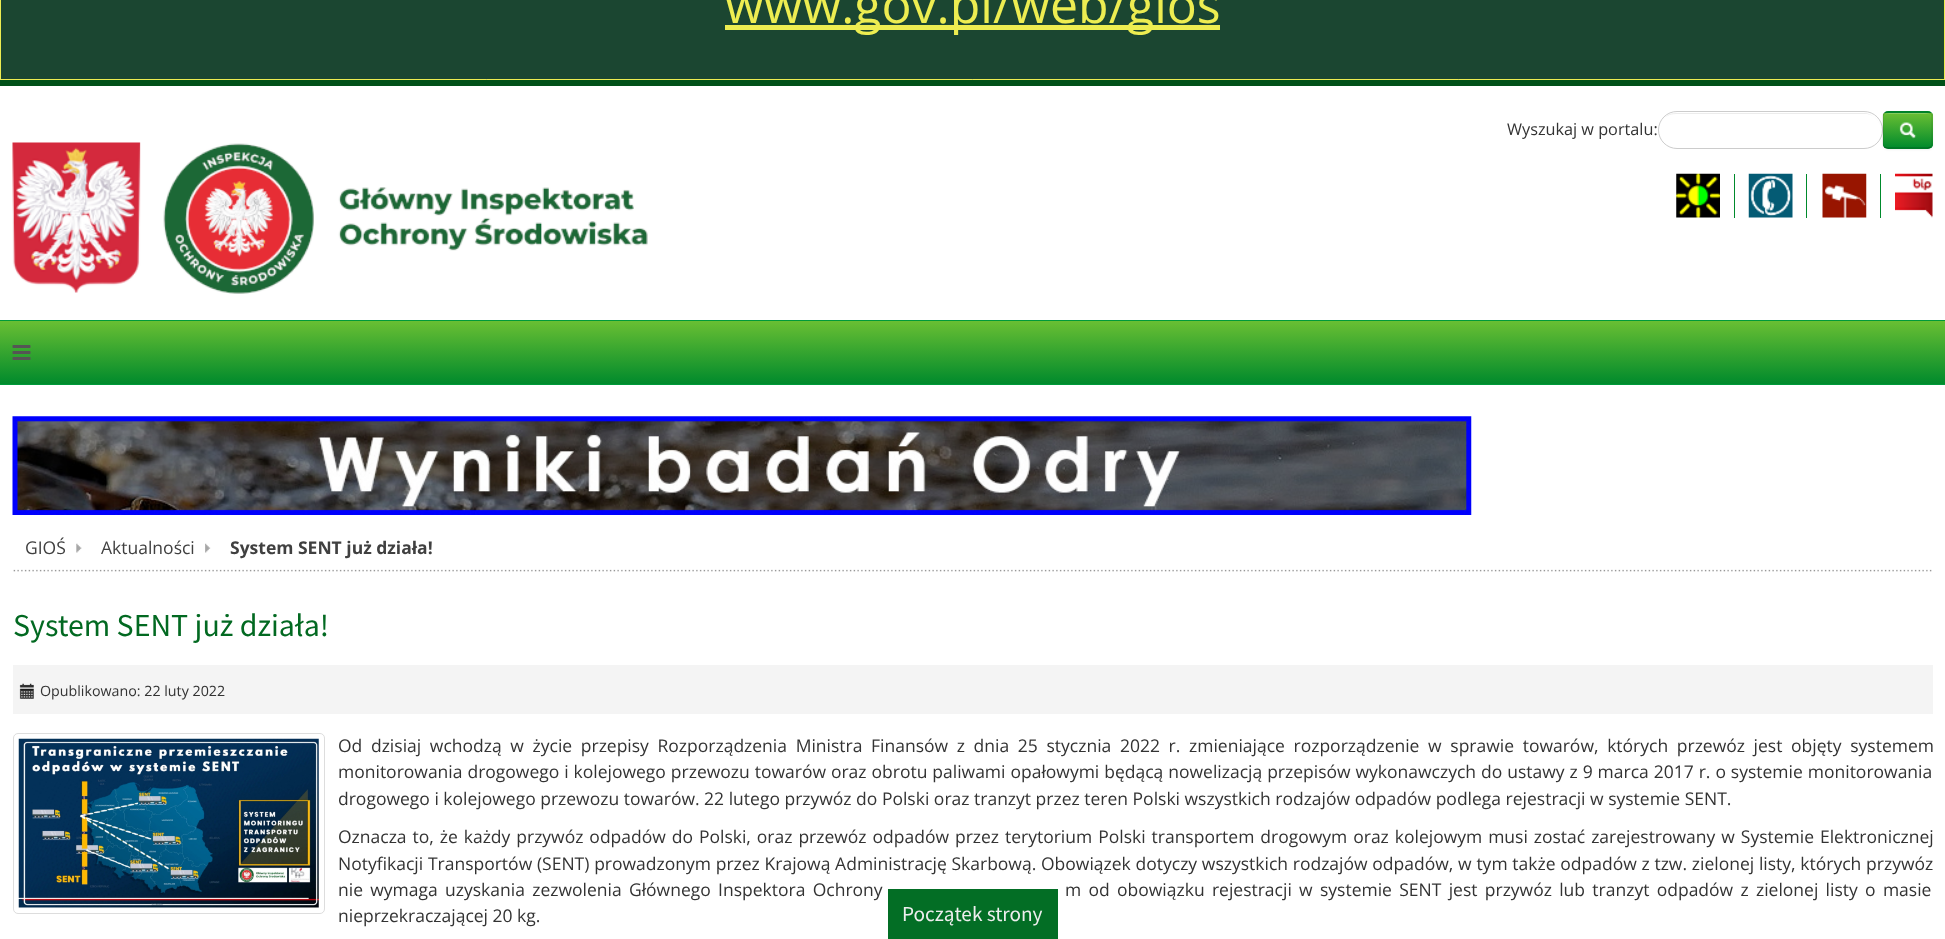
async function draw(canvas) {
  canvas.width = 1945;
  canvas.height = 939;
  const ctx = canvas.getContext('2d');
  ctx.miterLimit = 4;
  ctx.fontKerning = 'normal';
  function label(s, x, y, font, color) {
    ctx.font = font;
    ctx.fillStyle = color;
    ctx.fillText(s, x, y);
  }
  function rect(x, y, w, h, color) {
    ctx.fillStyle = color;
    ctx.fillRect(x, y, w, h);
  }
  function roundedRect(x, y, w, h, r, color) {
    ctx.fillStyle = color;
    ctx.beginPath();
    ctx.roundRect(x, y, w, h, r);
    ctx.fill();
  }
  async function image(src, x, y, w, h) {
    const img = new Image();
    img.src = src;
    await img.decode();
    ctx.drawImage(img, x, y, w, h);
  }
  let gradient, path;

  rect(0, 0, 1945, 939, '#fff');
  ctx.fillStyle = '#1b4631';
  ctx.beginPath();
  ctx.rect(0.5, -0.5, 1944, 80);
  ctx.fill();
  ctx.strokeStyle = '#eded51';
  ctx.stroke();
  rect(725, 25, 495, 5, '#eded51');
  label('www.gov.pl/web/gios', 725, 23, '50px Open Sans', '#eded51');
  rect(0, 80, 1945, 6, '#005018');
  label('Wyszukaj w portalu:', 1507, 135, '16.25px Open Sans', '#333');
  ctx.fillStyle = '#ececec';
  path = new Path2D('M1676 114H1867C1875 115 1880 122 1881 128C1880 120 1872 113 1864 113H1676C1670 113 1665 116 1661 122C1664 117 1669 114 1676 114Z');
  ctx.fill(path);
  ctx.beginPath();
  ctx.roundRect(1658.5, 111.5, 224, 37, 18.5);
  ctx.strokeStyle = '#ccc';
  ctx.stroke();
  ctx.fillStyle = '#0000000d';
  ctx.filter = 'blur(1px)';
  ctx.beginPath();
  ctx.roundRect(1883, 113, 50, 37, 5);
  ctx.fill();
  ctx.filter = 'none';
  roundedRect(1883, 111, 50, 38, 5, '#008a2c');
  ctx.save();
  ctx.beginPath();
  ctx.roundRect(1883, 111, 50, 38, 5);
  ctx.clip();
  gradient = ctx.createLinearGradient(1908, 113, 1908, 148);
  gradient.addColorStop(0, '#69bf33');
  gradient.addColorStop(1, '#008a2c');
  ctx.fillStyle = gradient;
  ctx.fillRect(1883, 113, 50, 35);
  ctx.restore();
  ctx.fillStyle = '#86cb5c';
  path = new Path2D('M1888 114H1928C1930 114 1931 115 1931 118C1931 112 1925 113 1920 113H1894C1890 113 1884 112 1884 118C1884 115 1885 114 1888 114Z');
  ctx.fill(path);
  path = new Path2D('M1930.5 147C1930 147.5 1928.5 148 1927.5 148H1887.5C1886.5 148 1885 147.5 1884.5 147');
  ctx.strokeStyle = '#00000040';
  ctx.lineWidth = 1.2;
  ctx.stroke(path);
  path = new Path2D('M1884.5 147C1883.5 146 1883 145 1883 144V116C1883 115 1883.5 114 1884.5 113C1885 112.5 1886.5 112 1887.5 112H1927.5C1928.5 112 1930 112.5 1930.5 113C1931.5 114 1932 115 1932 116V144C1932 145 1931.5 146 1930.5 147');
  ctx.strokeStyle = '#0000001a';
  ctx.stroke(path);
  await image('assets/img1.png', 1899, 122, 18, 17);
  rect(1734, 174, 1, 44, '#008a2c');
  await image('assets/img2.png', 1676, 173, 44, 45);
  rect(1806, 174, 1, 44, '#008a2c');
  await image('assets/img3.png', 1748, 173, 45, 45);
  rect(1880, 174, 1, 44, '#008a2c');
  await image('assets/img4.png', 1822, 173, 45, 45);
  await image('assets/img5.png', 1895, 173, 38, 45);
  await image('assets/img6.png', 12, 142, 636, 152);
  gradient = ctx.createLinearGradient(973, 321, 973, 384);
  gradient.addColorStop(0, '#69bf33');
  gradient.addColorStop(1, '#008a2c');
  ctx.fillStyle = gradient;
  ctx.fillRect(0, 321, 1945, 63);
  rect(0, 320, 1945, 1, '#00993a');
  rect(0, 384, 1945, 1, '#00993a');
  await image('assets/img7.png', 12, 345, 19, 15);
  await image('assets/img8.png', 12, 416, 1460, 99);
  await image('assets/img9.png', 13, 569, 1919, 3);
  label('GIOŚ', 25, 554, '17.5px Open Sans', '#404040');
  await image('assets/img10.png', 76, 543, 6, 10);
  label('Aktualności', 101, 554, '17.5px Open Sans', '#404040');
  await image('assets/img11.png', 205, 543, 6, 10);
  label('System SENT już działa!', 230, 554, 'bold 17.5px Open Sans', '#404040');
  label('System SENT już działa!', 13, 636, '31.9px Source Sans Pro', '#026921');
  rect(13, 665, 1920, 49, '#f4f4f4');
  await image('assets/img12.png', 19, 683, 15, 16);
  label('Opublikowano: 22 luty 2022', 40, 696, '14.25px Open Sans', '#333');
  ctx.beginPath();
  ctx.roundRect(13.5, 733.5, 311, 180, 4.5);
  ctx.strokeStyle = '#ddd';
  ctx.lineWidth = 1;
  ctx.stroke();
  await image('assets/img13.png', 18, 738, 301, 170);
  ctx.wordSpacing = '4.1px';
  label('Od dzisiaj wchodzą w życie przepisy Rozporządzenia Ministra Finansów z dnia 25 stycznia 2022 r. zmieniające rozporządzenie w sprawie towarów, których przewóz jest objęty systemem', 338, 752, '17.5px Open Sans', '#333');
  ctx.wordSpacing = '0.4px';
  label('monitorowania drogowego i kolejowego przewozu towarów oraz obrotu paliwami opałowymi będącą nowelizacją przepisów wykonawczych do ustawy z 9 marca 2017 r. o systemie monitorowania', 338, 778, '17.5px Open Sans', '#333');
  ctx.wordSpacing = '0px';
  label('drogowego i kolejowego przewozu towarów. 22 lutego przywóz do Polski oraz tranzyt przez teren Polski wszystkich rodzajów odpadów podlega rejestracji w systemie SENT.', 338, 805, '17.5px Open Sans', '#333');
  ctx.wordSpacing = '1.4px';
  label('Oznacza to, że każdy przywóz odpadów do Polski, oraz przewóz odpadów przez terytorium Polski transportem drogowym oraz kolejowym musi zostać zarejestrowany w Systemie Elektronicznej', 338, 843, '17.5px Open Sans', '#333');
  ctx.wordSpacing = '0.2px';
  label('Notyfikacji Transportów (SENT) prowadzonym przez Krajową Administrację Skarbową. Obowiązek dotyczy wszystkich rodzajów odpadów, w tym także odpadów z tzw. zielonej listy, których przywóz', 338, 870, '17.5px Open Sans', '#333');
  ctx.wordSpacing = '2.75px';
  label('nie wymaga uzyskania zezwolenia Głównego Inspektora Ochrony', 338, 896, '17.5px Open Sans', '#333');
  label('m od obowiązku rejestracji w systemie SENT jest przywóz lub tranzyt odpadów z zielonej listy o masie', 1065, 896, '17.5px Open Sans', '#333');
  ctx.wordSpacing = '0px';
  label('nieprzekraczającej 20 kg.', 338, 922, '17.5px Open Sans', '#333');
  rect(888, 889, 170, 50, '#036e25');
  label('Początek strony', 902, 921, '21.25px Source Sans Pro', '#eee');
}

draw(document.querySelector('canvas'));
